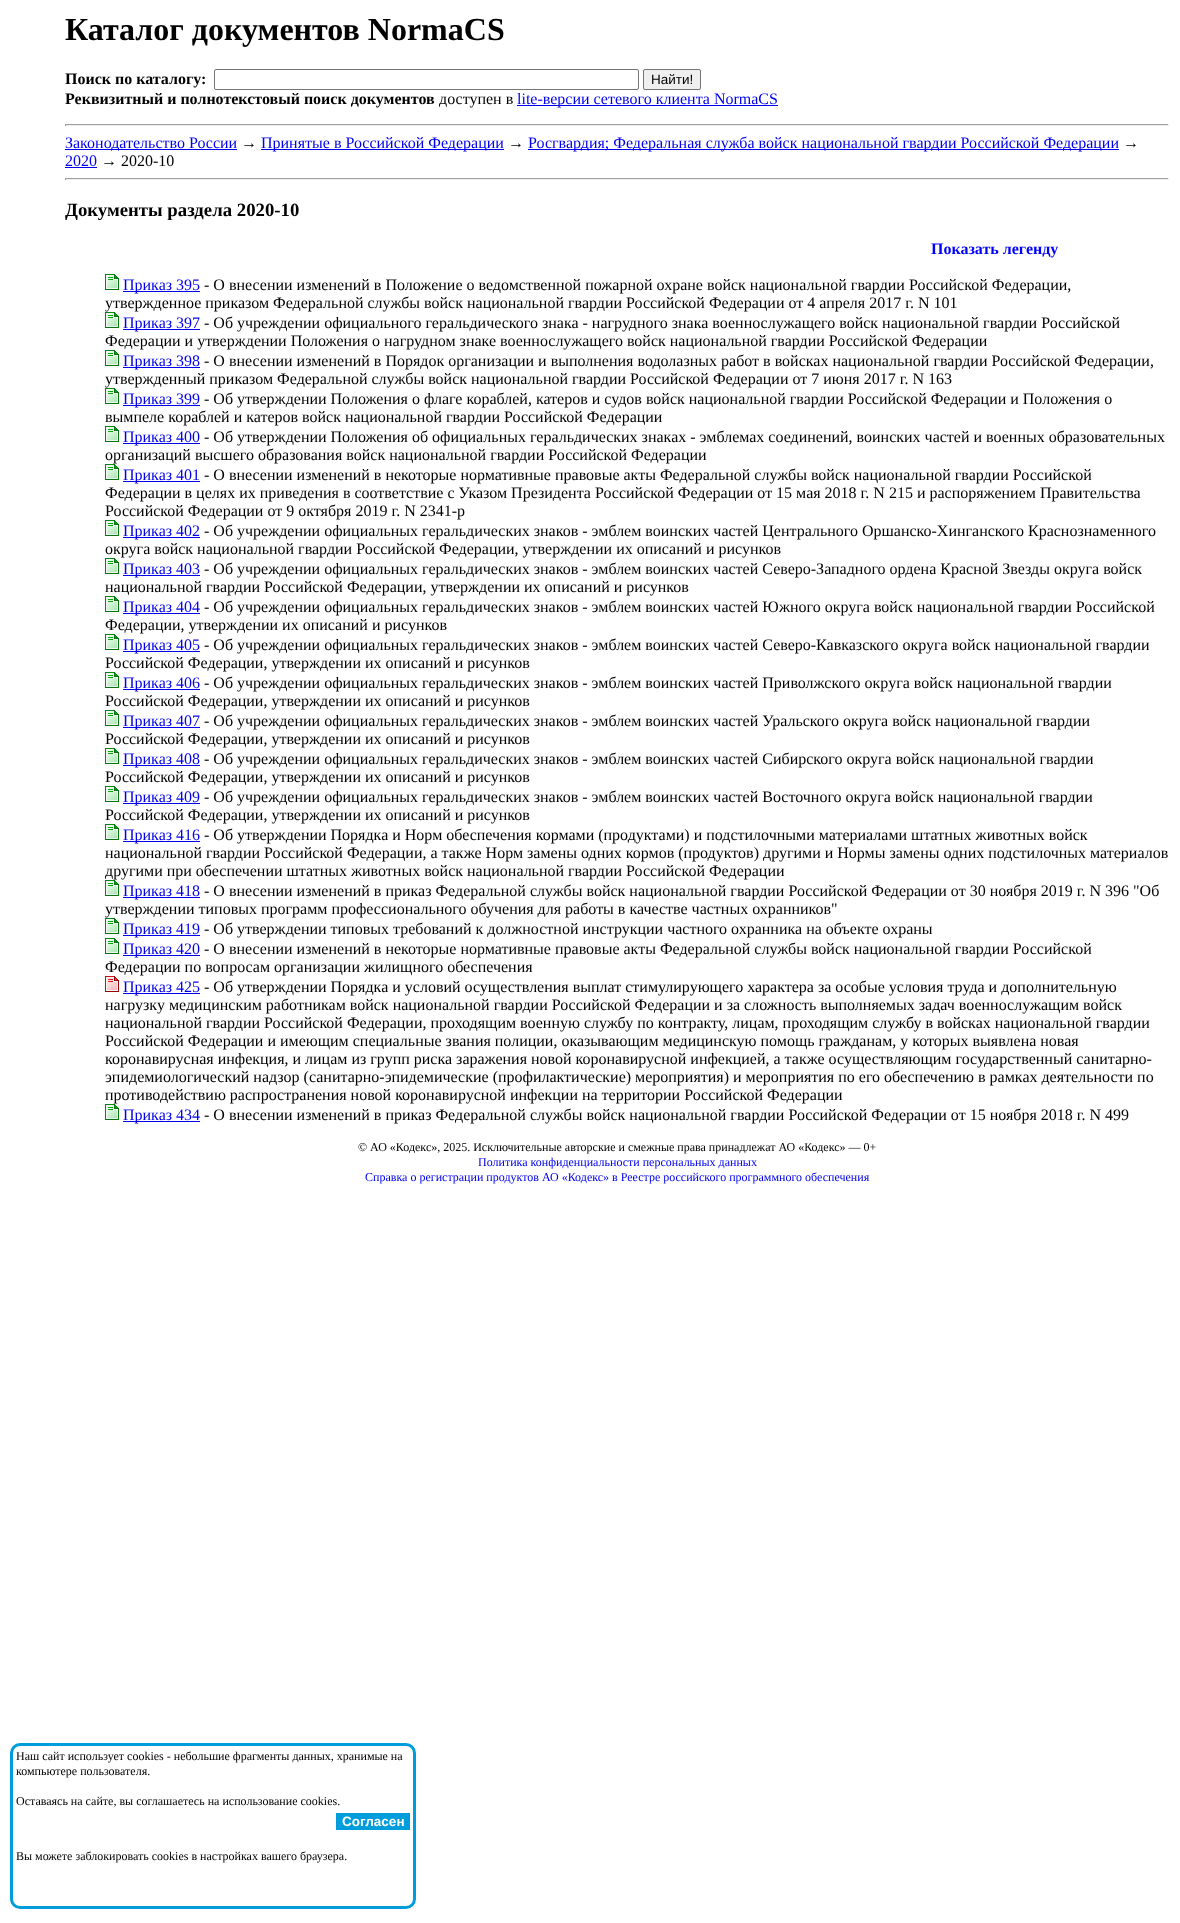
async function draw(canvas) {
  canvas.width = 1180;
  canvas.height = 1923;
  const ctx = canvas.getContext('2d');
  ctx.miterLimit = 4;
  ctx.fontKerning = 'normal';
  function label(s, x, y, font, color) {
    ctx.font = font;
    ctx.fillStyle = color;
    ctx.fillText(s, x, y);
  }
  function rect(x, y, w, h, color) {
    ctx.fillStyle = color;
    ctx.fillRect(x, y, w, h);
  }
  async function image(src, x, y, w, h) {
    const img = new Image();
    img.src = src;
    await img.decode();
    ctx.drawImage(img, x, y, w, h);
  }

  rect(0, 0, 1180, 1923, '#fff');
  label('Каталог документов NormaCS', 65, 40, 'bold 32px Liberation Serif', '#000');
  label('Поиск по каталогу:', 65, 84, 'bold 16px Liberation Serif', '#000');
  ctx.beginPath();
  ctx.roundRect(214.5, 69.5, 424, 20, 1.5);
  ctx.strokeStyle = '#767676';
  ctx.stroke();
  ctx.fillStyle = '#efefef';
  ctx.beginPath();
  ctx.roundRect(643.5, 69.5, 57, 20, 1.5);
  ctx.fill();
  ctx.stroke();
  label('Найти!', 651, 84, '13.5px Liberation Sans', '#000');
  label('Реквизитный и полнотекстовый поиск документов', 65, 104, 'bold 16px Liberation Serif', '#000');
  label('доступен в', 439, 104, '16px Liberation Serif', '#000');
  rect(517, 105, 261, 1, '#00e');
  label('lite-версии сетевого клиента NormaCS', 517, 104, '16px Liberation Serif', '#00e');
  rect(65, 124, 1104, 1, '#9f9f9f');
  rect(1168, 124, 1, 2, '#eee');
  rect(65, 125, 1104, 1, '#eee');
  rect(65, 124, 1, 2, '#9f9f9f');
  rect(65, 149, 172, 1, '#00e');
  label('Законодательство России', 65, 148, '16px Liberation Serif', '#00e');
  label('→', 241, 148, '16px Liberation Serif', '#000');
  rect(261, 149, 243, 1, '#00e');
  label('Принятые в Российской Федерации', 261, 148, '16px Liberation Serif', '#00e');
  label('→', 508, 148, '16px Liberation Serif', '#000');
  rect(528, 149, 591, 1, '#00e');
  label('Росгвардия; Федеральная служба войск национальной гвардии Российской Федерации', 528, 148, '16px Liberation Serif', '#00e');
  label('→', 1123, 148, '16px Liberation Serif', '#000');
  label('2020', 65, 166, '16px Liberation Serif', '#00e');
  rect(65, 167, 32, 1, '#00e');
  label('→ 2020-10', 101, 166, '16px Liberation Serif', '#000');
  rect(65, 178, 1104, 1, '#9f9f9f');
  rect(1168, 178, 1, 2, '#eee');
  rect(65, 179, 1104, 1, '#eee');
  rect(65, 178, 1, 2, '#9f9f9f');
  label('Документы раздела 2020-10', 65, 216, 'bold 18.75px Liberation Serif', '#000');
  label('Показать легенду', 931, 254, 'bold 16px Liberation Serif', '#00f');
  await image('assets/img1.png', 105, 274, 14, 16);
  rect(123, 291, 77, 1, '#00e');
  label('Приказ 395', 123, 290, '16px Liberation Serif', '#00e');
  label('- О внесении изменений в Положение о ведомственной пожарной охране войск национальной гвардии Российской Федерации,', 204, 290, '16px Liberation Serif', '#000');
  label('утвержденное приказом Федеральной службы войск национальной гвардии Российской Федерации от 4 апреля 2017 г. N 101', 105, 308, '16px Liberation Serif', '#000');
  await image('assets/img1.png', 105, 312, 14, 16);
  rect(123, 329, 77, 1, '#00e');
  label('Приказ 397', 123, 328, '16px Liberation Serif', '#00e');
  label('- Об учреждении официального геральдического знака - нагрудного знака военнослужащего войск национальной гвардии Российской', 204, 328, '16px Liberation Serif', '#000');
  label('Федерации и утверждении Положения о нагрудном знаке военнослужащего войск национальной гвардии Российской Федерации', 105, 346, '16px Liberation Serif', '#000');
  await image('assets/img1.png', 105, 350, 14, 16);
  rect(123, 367, 77, 1, '#00e');
  label('Приказ 398', 123, 366, '16px Liberation Serif', '#00e');
  label('- О внесении изменений в Порядок организации и выполнения водолазных работ в войсках национальной гвардии Российской Федерации,', 204, 366, '16px Liberation Serif', '#000');
  label('утвержденный приказом Федеральной службы войск национальной гвардии Российской Федерации от 7 июня 2017 г. N 163', 105, 384, '16px Liberation Serif', '#000');
  await image('assets/img1.png', 105, 388, 14, 16);
  rect(123, 405, 77, 1, '#00e');
  label('Приказ 399', 123, 404, '16px Liberation Serif', '#00e');
  label('- Об утверждении Положения о флаге кораблей, катеров и судов войск национальной гвардии Российской Федерации и Положения о', 204, 404, '16px Liberation Serif', '#000');
  label('вымпеле кораблей и катеров войск национальной гвардии Российской Федерации', 105, 422, '16px Liberation Serif', '#000');
  await image('assets/img1.png', 105, 426, 14, 16);
  rect(123, 443, 77, 1, '#00e');
  label('Приказ 400', 123, 442, '16px Liberation Serif', '#00e');
  label('- Об утверждении Положения об официальных геральдических знаках - эмблемах соединений, воинских частей и военных образовательных', 204, 442, '16px Liberation Serif', '#000');
  label('организаций высшего образования войск национальной гвардии Российской Федерации', 105, 460, '16px Liberation Serif', '#000');
  await image('assets/img1.png', 105, 464, 14, 16);
  rect(123, 481, 77, 1, '#00e');
  label('Приказ 401', 123, 480, '16px Liberation Serif', '#00e');
  label('- О внесении изменений в некоторые нормативные правовые акты Федеральной службы войск национальной гвардии Российской', 204, 480, '16px Liberation Serif', '#000');
  label('Федерации в целях их приведения в соответствие с Указом Президента Российской Федерации от 15 мая 2018 г. N 215 и распоряжением Правительства', 105, 498, '16px Liberation Serif', '#000');
  label('Российской Федерации от 9 октября 2019 г. N 2341-р', 105, 516, '16px Liberation Serif', '#000');
  await image('assets/img1.png', 105, 520, 14, 16);
  rect(123, 537, 77, 1, '#00e');
  label('Приказ 402', 123, 536, '16px Liberation Serif', '#00e');
  label('- Об учреждении официальных геральдических знаков - эмблем воинских частей Центрального Оршанско-Хинганского Краснознаменного', 204, 536, '16px Liberation Serif', '#000');
  label('округа войск национальной гвардии Российской Федерации, утверждении их описаний и рисунков', 105, 554, '16px Liberation Serif', '#000');
  await image('assets/img1.png', 105, 558, 14, 16);
  rect(123, 575, 77, 1, '#00e');
  label('Приказ 403', 123, 574, '16px Liberation Serif', '#00e');
  label('- Об учреждении официальных геральдических знаков - эмблем воинских частей Северо-Западного ордена Красной Звезды округа войск', 204, 574, '16px Liberation Serif', '#000');
  label('национальной гвардии Российской Федерации, утверждении их описаний и рисунков', 105, 592, '16px Liberation Serif', '#000');
  await image('assets/img1.png', 105, 596, 14, 16);
  rect(123, 613, 77, 1, '#00e');
  label('Приказ 404', 123, 612, '16px Liberation Serif', '#00e');
  label('- Об учреждении официальных геральдических знаков - эмблем воинских частей Южного округа войск национальной гвардии Российской', 204, 612, '16px Liberation Serif', '#000');
  label('Федерации, утверждении их описаний и рисунков', 105, 630, '16px Liberation Serif', '#000');
  await image('assets/img1.png', 105, 634, 14, 16);
  rect(123, 651, 77, 1, '#00e');
  label('Приказ 405', 123, 650, '16px Liberation Serif', '#00e');
  label('- Об учреждении официальных геральдических знаков - эмблем воинских частей Северо-Кавказского округа войск национальной гвардии', 204, 650, '16px Liberation Serif', '#000');
  label('Российской Федерации, утверждении их описаний и рисунков', 105, 668, '16px Liberation Serif', '#000');
  await image('assets/img1.png', 105, 672, 14, 16);
  rect(123, 689, 77, 1, '#00e');
  label('Приказ 406', 123, 688, '16px Liberation Serif', '#00e');
  label('- Об учреждении официальных геральдических знаков - эмблем воинских частей Приволжского округа войск национальной гвардии', 204, 688, '16px Liberation Serif', '#000');
  label('Российской Федерации, утверждении их описаний и рисунков', 105, 706, '16px Liberation Serif', '#000');
  await image('assets/img1.png', 105, 710, 14, 16);
  rect(123, 727, 77, 1, '#00e');
  label('Приказ 407', 123, 726, '16px Liberation Serif', '#00e');
  label('- Об учреждении официальных геральдических знаков - эмблем воинских частей Уральского округа войск национальной гвардии', 204, 726, '16px Liberation Serif', '#000');
  label('Российской Федерации, утверждении их описаний и рисунков', 105, 744, '16px Liberation Serif', '#000');
  await image('assets/img1.png', 105, 748, 14, 16);
  rect(123, 765, 77, 1, '#00e');
  label('Приказ 408', 123, 764, '16px Liberation Serif', '#00e');
  label('- Об учреждении официальных геральдических знаков - эмблем воинских частей Сибирского округа войск национальной гвардии', 204, 764, '16px Liberation Serif', '#000');
  label('Российской Федерации, утверждении их описаний и рисунков', 105, 782, '16px Liberation Serif', '#000');
  await image('assets/img1.png', 105, 786, 14, 16);
  rect(123, 803, 77, 1, '#00e');
  label('Приказ 409', 123, 802, '16px Liberation Serif', '#00e');
  label('- Об учреждении официальных геральдических знаков - эмблем воинских частей Восточного округа войск национальной гвардии', 204, 802, '16px Liberation Serif', '#000');
  label('Российской Федерации, утверждении их описаний и рисунков', 105, 820, '16px Liberation Serif', '#000');
  await image('assets/img1.png', 105, 824, 14, 16);
  rect(123, 841, 77, 1, '#00e');
  label('Приказ 416', 123, 840, '16px Liberation Serif', '#00e');
  label('- Об утверждении Порядка и Норм обеспечения кормами (продуктами) и подстилочными материалами штатных животных войск', 204, 840, '16px Liberation Serif', '#000');
  label('национальной гвардии Российской Федерации, а также Норм замены одних кормов (продуктов) другими и Нормы замены одних подстилочных материалов', 105, 858, '16px Liberation Serif', '#000');
  label('другими при обеспечении штатных животных войск национальной гвардии Российской Федерации', 105, 876, '16px Liberation Serif', '#000');
  await image('assets/img1.png', 105, 880, 14, 16);
  rect(123, 897, 77, 1, '#00e');
  label('Приказ 418', 123, 896, '16px Liberation Serif', '#00e');
  label('- О внесении изменений в приказ Федеральной службы войск национальной гвардии Российской Федерации от 30 ноября 2019 г. N 396 "Об', 204, 896, '16px Liberation Serif', '#000');
  label('утверждении типовых программ профессионального обучения для работы в качестве частных охранников"', 105, 914, '16px Liberation Serif', '#000');
  await image('assets/img1.png', 105, 918, 14, 16);
  rect(123, 935, 77, 1, '#00e');
  label('Приказ 419', 123, 934, '16px Liberation Serif', '#00e');
  label('- Об утверждении типовых требований к должностной инструкции частного охранника на объекте охраны', 204, 934, '16px Liberation Serif', '#000');
  await image('assets/img1.png', 105, 938, 14, 16);
  rect(123, 955, 77, 1, '#00e');
  label('Приказ 420', 123, 954, '16px Liberation Serif', '#00e');
  label('- О внесении изменений в некоторые нормативные правовые акты Федеральной службы войск национальной гвардии Российской', 204, 954, '16px Liberation Serif', '#000');
  label('Федерации по вопросам организации жилищного обеспечения', 105, 972, '16px Liberation Serif', '#000');
  await image('assets/img2.png', 105, 976, 14, 16);
  rect(123, 993, 77, 1, '#00e');
  label('Приказ 425', 123, 992, '16px Liberation Serif', '#00e');
  label('- Об утверждении Порядка и условий осуществления выплат стимулирующего характера за особые условия труда и дополнительную', 204, 992, '16px Liberation Serif', '#000');
  label('нагрузку медицинским работникам войск национальной гвардии Российской Федерации и за сложность выполняемых задач военнослужащим войск', 105, 1010, '16px Liberation Serif', '#000');
  label('национальной гвардии Российской Федерации, проходящим военную службу по контракту, лицам, проходящим службу в войсках национальной гвардии', 105, 1028, '16px Liberation Serif', '#000');
  label('Российской Федерации и имеющим специальные звания полиции, оказывающим медицинскую помощь гражданам, у которых выявлена новая', 105, 1046, '16px Liberation Serif', '#000');
  label('коронавирусная инфекция, и лицам из групп риска заражения новой коронавирусной инфекцией, а также осуществляющим государственный санитарно-', 105, 1064, '16px Liberation Serif', '#000');
  label('эпидемиологический надзор (санитарно-эпидемические (профилактические) мероприятия) и мероприятия по его обеспечению в рамках деятельности по', 105, 1082, '16px Liberation Serif', '#000');
  label('противодействию распространения новой коронавирусной инфекции на территории Российской Федерации', 105, 1100, '16px Liberation Serif', '#000');
  await image('assets/img1.png', 105, 1104, 14, 16);
  rect(123, 1121, 77, 1, '#00e');
  label('Приказ 434', 123, 1120, '16px Liberation Serif', '#00e');
  label('- О внесении изменений в приказ Федеральной службы войск национальной гвардии Российской Федерации от 15 ноября 2018 г. N 499', 204, 1120, '16px Liberation Serif', '#000');
  label('© АО «Кодекс», 2025. Исключительные авторские и смежные права принадлежат АО «Кодекс» — 0+', 358, 1151, '12px Liberation Serif', '#000');
  label('Политика конфиденциальности персональных данных', 478, 1166, '12px Liberation Serif', '#00e');
  label('Справка о регистрации продуктов АО «Кодекс» в Реестре российского программного обеспечения', 365, 1181, '12px Liberation Serif', '#00e');
  ctx.beginPath();
  ctx.roundRect(11.5, 1744.5, 403, 163, 8.5);
  ctx.strokeStyle = '#009ddc';
  ctx.lineWidth = 3;
  ctx.stroke();
  label('Наш сайт использует cookies - небольшие фрагменты данных, хранимые на', 16, 1760, '12px Liberation Serif', '#000');
  label('компьютере пользователя.', 16, 1775, '12px Liberation Serif', '#000');
  label('Оставаясь на сайте, вы соглашаетесь на использование cookies.', 16, 1805, '12px Liberation Serif', '#000');
  rect(336, 1813, 74, 17, '#009ddc');
  label('Согласен', 342, 1826, 'bold 13.5px Liberation Sans', '#fff');
  label('Вы можете заблокировать cookies в настройках вашего браузера.', 16, 1860, '12px Liberation Serif', '#000');
}

draw(document.querySelector('canvas'));
